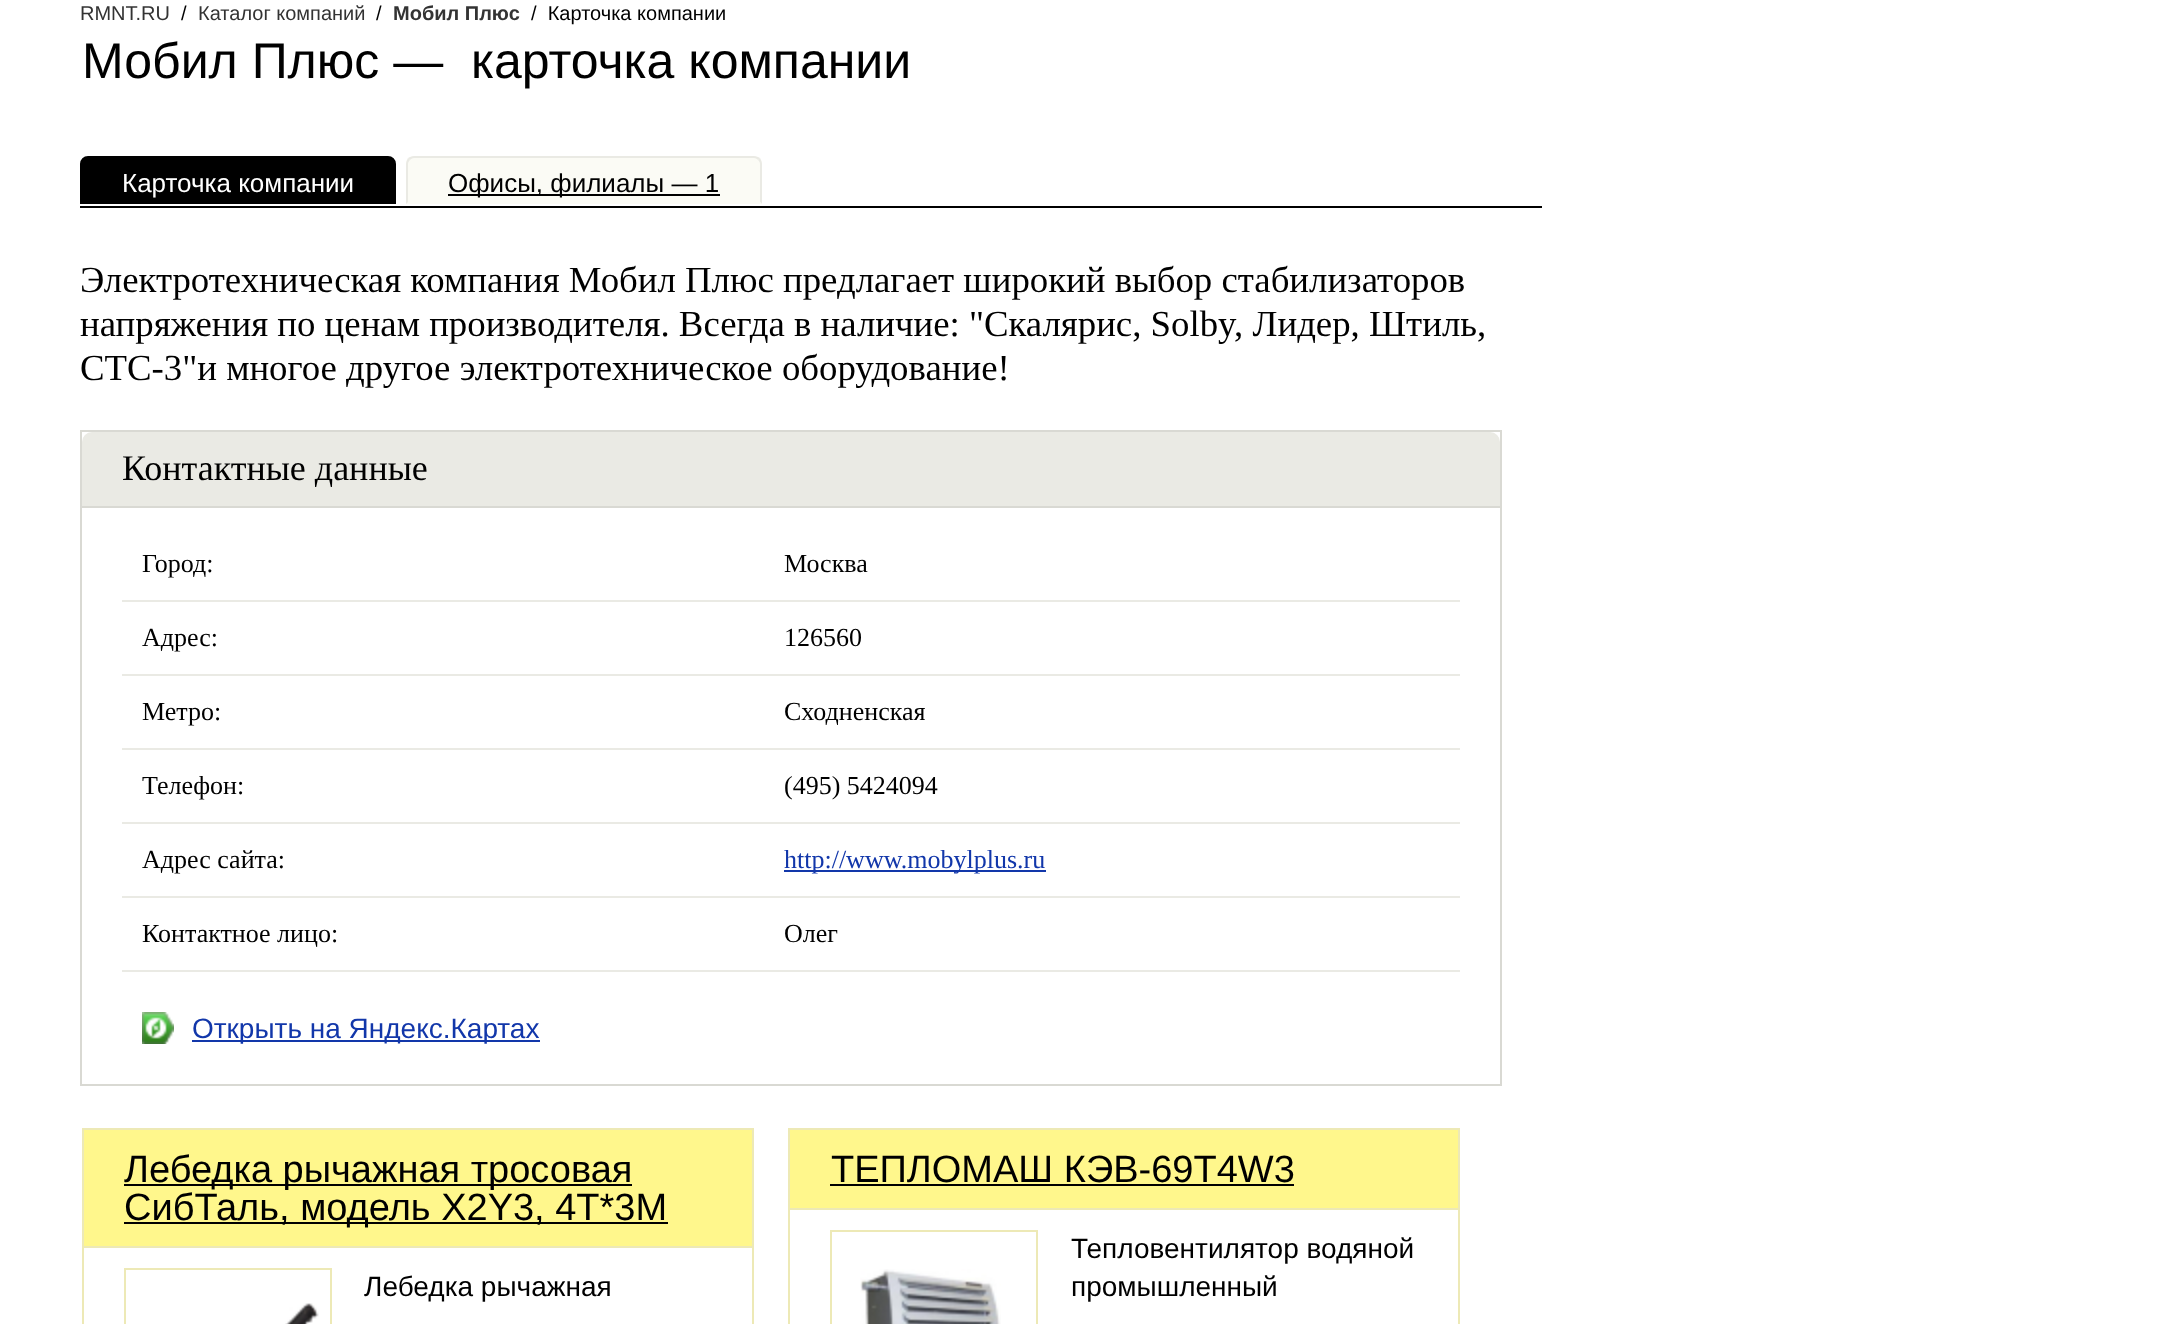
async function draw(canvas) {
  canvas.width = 2161;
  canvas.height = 1324;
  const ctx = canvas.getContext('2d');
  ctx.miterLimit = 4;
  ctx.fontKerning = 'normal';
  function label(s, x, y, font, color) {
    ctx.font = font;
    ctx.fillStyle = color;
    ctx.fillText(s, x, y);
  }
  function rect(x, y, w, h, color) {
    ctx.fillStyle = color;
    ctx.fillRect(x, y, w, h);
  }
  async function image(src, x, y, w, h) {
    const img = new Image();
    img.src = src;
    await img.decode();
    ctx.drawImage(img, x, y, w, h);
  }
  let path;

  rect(0, 0, 2161, 1324, '#fff');
  label('RMNT.RU', 80, 20, '20px Liberation Sans', '#333');
  label('/', 181, 20, '20px Liberation Sans', '#000');
  label('Каталог компаний', 198, 20, '20px Liberation Sans', '#333');
  label('/', 376, 20, '20px Liberation Sans', '#000');
  label('Мобил Плюс', 393, 20, 'bold 20px Liberation Sans', '#333');
  label('/  Карточка компании', 531, 20, '20px Liberation Sans', '#000');
  label('Мобил Плюс —  карточка компании', 82, 78, '50px Liberation Sans', '#000');
  rect(80, 206, 1462, 2, '#000');
  ctx.beginPath();
  ctx.roundRect(81, 157, 314, 46, [7, 7, 0, 0]);
  ctx.fill();
  ctx.strokeStyle = '#000';
  ctx.lineWidth = 2;
  ctx.stroke();
  label('Карточка компании', 122, 192, '26px Liberation Sans', '#fff');
  ctx.fillStyle = '#fbfbf5';
  ctx.beginPath();
  ctx.roundRect(406, 156, 356, 48, [8, 8, 0, 0]);
  ctx.fill();
  ctx.fillStyle = '#eaeae4';
  path = new Path2D('M414 156C412 156 410 157 408 158L410 160C411 159 412 158 414 158H754C756 158 757 159 758 160L760 158C758 157 756 156 754 156Z');
  ctx.fill(path);
  path = new Path2D('M762 204V164C762 162 761 160 760 158L758 160C759 161 760 162 760 164V202Z');
  ctx.fill(path);
  ctx.fillStyle = '#fbfbf5';
  path = new Path2D('M762 204L760 202H408L406 204Z');
  ctx.fill(path);
  ctx.fillStyle = '#eaeae4';
  path = new Path2D('M406 204L408 202V164C408 162 409 161 410 160L408 158C407 160 406 162 406 164Z');
  ctx.fill(path);
  rect(448, 194, 272, 2, '#000');
  label('Офисы, филиалы — 1', 448, 192, '26px Liberation Sans', '#000');
  label('Электротехническая компания Мобил Плюс предлагает широкий выбор стабилизаторов', 80, 292, '36.8px Liberation Serif', '#000');
  label('напряжения по ценам производителя. Всегда в наличие: "Скалярис, Solby, Лидер, Штиль,', 80, 336, '36.8px Liberation Serif', '#000');
  label('СТС-3"и многое другое электротехническое оборудование!', 80, 380, '36.8px Liberation Serif', '#000');
  ctx.strokeStyle = '#d9d9d3';
  ctx.strokeRect(81, 431, 1420, 654);
  ctx.fillStyle = '#eaeae4';
  ctx.beginPath();
  ctx.roundRect(82, 432, 1418, 76, [10, 10, 0, 0]);
  ctx.fill();
  rect(82, 506, 1418, 2, '#d9d9d3');
  label('Контактные данные', 122, 480, '36px Liberation Serif', '#000');
  rect(122, 600, 1338, 2, '#eaeae4');
  label('Город:', 142, 572, '26px Liberation Serif', '#000');
  label('Москва', 784, 572, '26px Liberation Serif', '#000');
  rect(122, 674, 1338, 2, '#eaeae4');
  label('Адрес:', 142, 646, '26px Liberation Serif', '#000');
  label('126560', 784, 646, '26px Liberation Serif', '#000');
  rect(122, 748, 1338, 2, '#eaeae4');
  label('Метро:', 142, 720, '26px Liberation Serif', '#000');
  label('Сходненская', 784, 720, '26px Liberation Serif', '#000');
  rect(122, 822, 1338, 2, '#eaeae4');
  label('Телефон:', 142, 794, '26px Liberation Serif', '#000');
  label('(495) 5424094', 784, 794, '26px Liberation Serif', '#000');
  rect(122, 896, 1338, 2, '#eaeae4');
  label('Адрес сайта:', 142, 868, '26px Liberation Serif', '#000');
  rect(784, 870, 262, 2, '#1237aa');
  label('http://www.mobylplus.ru', 784, 868, '26px Liberation Serif', '#1237aa');
  rect(122, 970, 1338, 2, '#eaeae4');
  label('Контактное лицо:', 142, 942, '26px Liberation Serif', '#000');
  label('Олег', 784, 942, '26px Liberation Serif', '#000');
  await image('assets/img1.png', 142, 1012, 32, 32);
  rect(192, 1040, 348, 2, '#1237aa');
  label('Открыть на Яндекс.Картах', 192, 1038, '28px Liberation Sans', '#1237aa');
  ctx.strokeStyle = '#ede9b6';
  ctx.strokeRect(83, 1129, 670, 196);
  rect(84, 1130, 668, 116, '#fff78c');
  rect(84, 1246, 668, 2, '#ede9b6');
  rect(124, 1184, 508, 2, '#000');
  label('Лебедка рычажная тросовая', 124, 1182, '38px Liberation Sans', '#000');
  rect(124, 1222, 544, 2, '#000');
  label('СибТаль, модель X2Y3, 4Т*3М', 124, 1220, '38px Liberation Sans', '#000');
  await image('assets/img2.png', 285, 1303, 34, 21);
  ctx.strokeRect(125, 1269, 206, 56);
  label('Лебедка рычажная', 364, 1296, '28px Liberation Sans', '#000');
  ctx.strokeRect(789, 1129, 670, 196);
  rect(790, 1130, 668, 78, '#fff78c');
  rect(790, 1208, 668, 2, '#ede9b6');
  label('ТЕПЛОМАШ КЭВ-69Т4W3', 831, 1182, '38px Liberation Sans', '#000');
  rect(830, 1184, 464, 2, '#000');
  await image('assets/img3.png', 860, 1269, 141, 55);
  ctx.strokeRect(831, 1231, 206, 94);
  label('Тепловентилятор водяной', 1071, 1258, '28px Liberation Sans', '#000');
  label('промышленный', 1071, 1296, '28px Liberation Sans', '#000');
}

draw(document.querySelector('canvas'));
